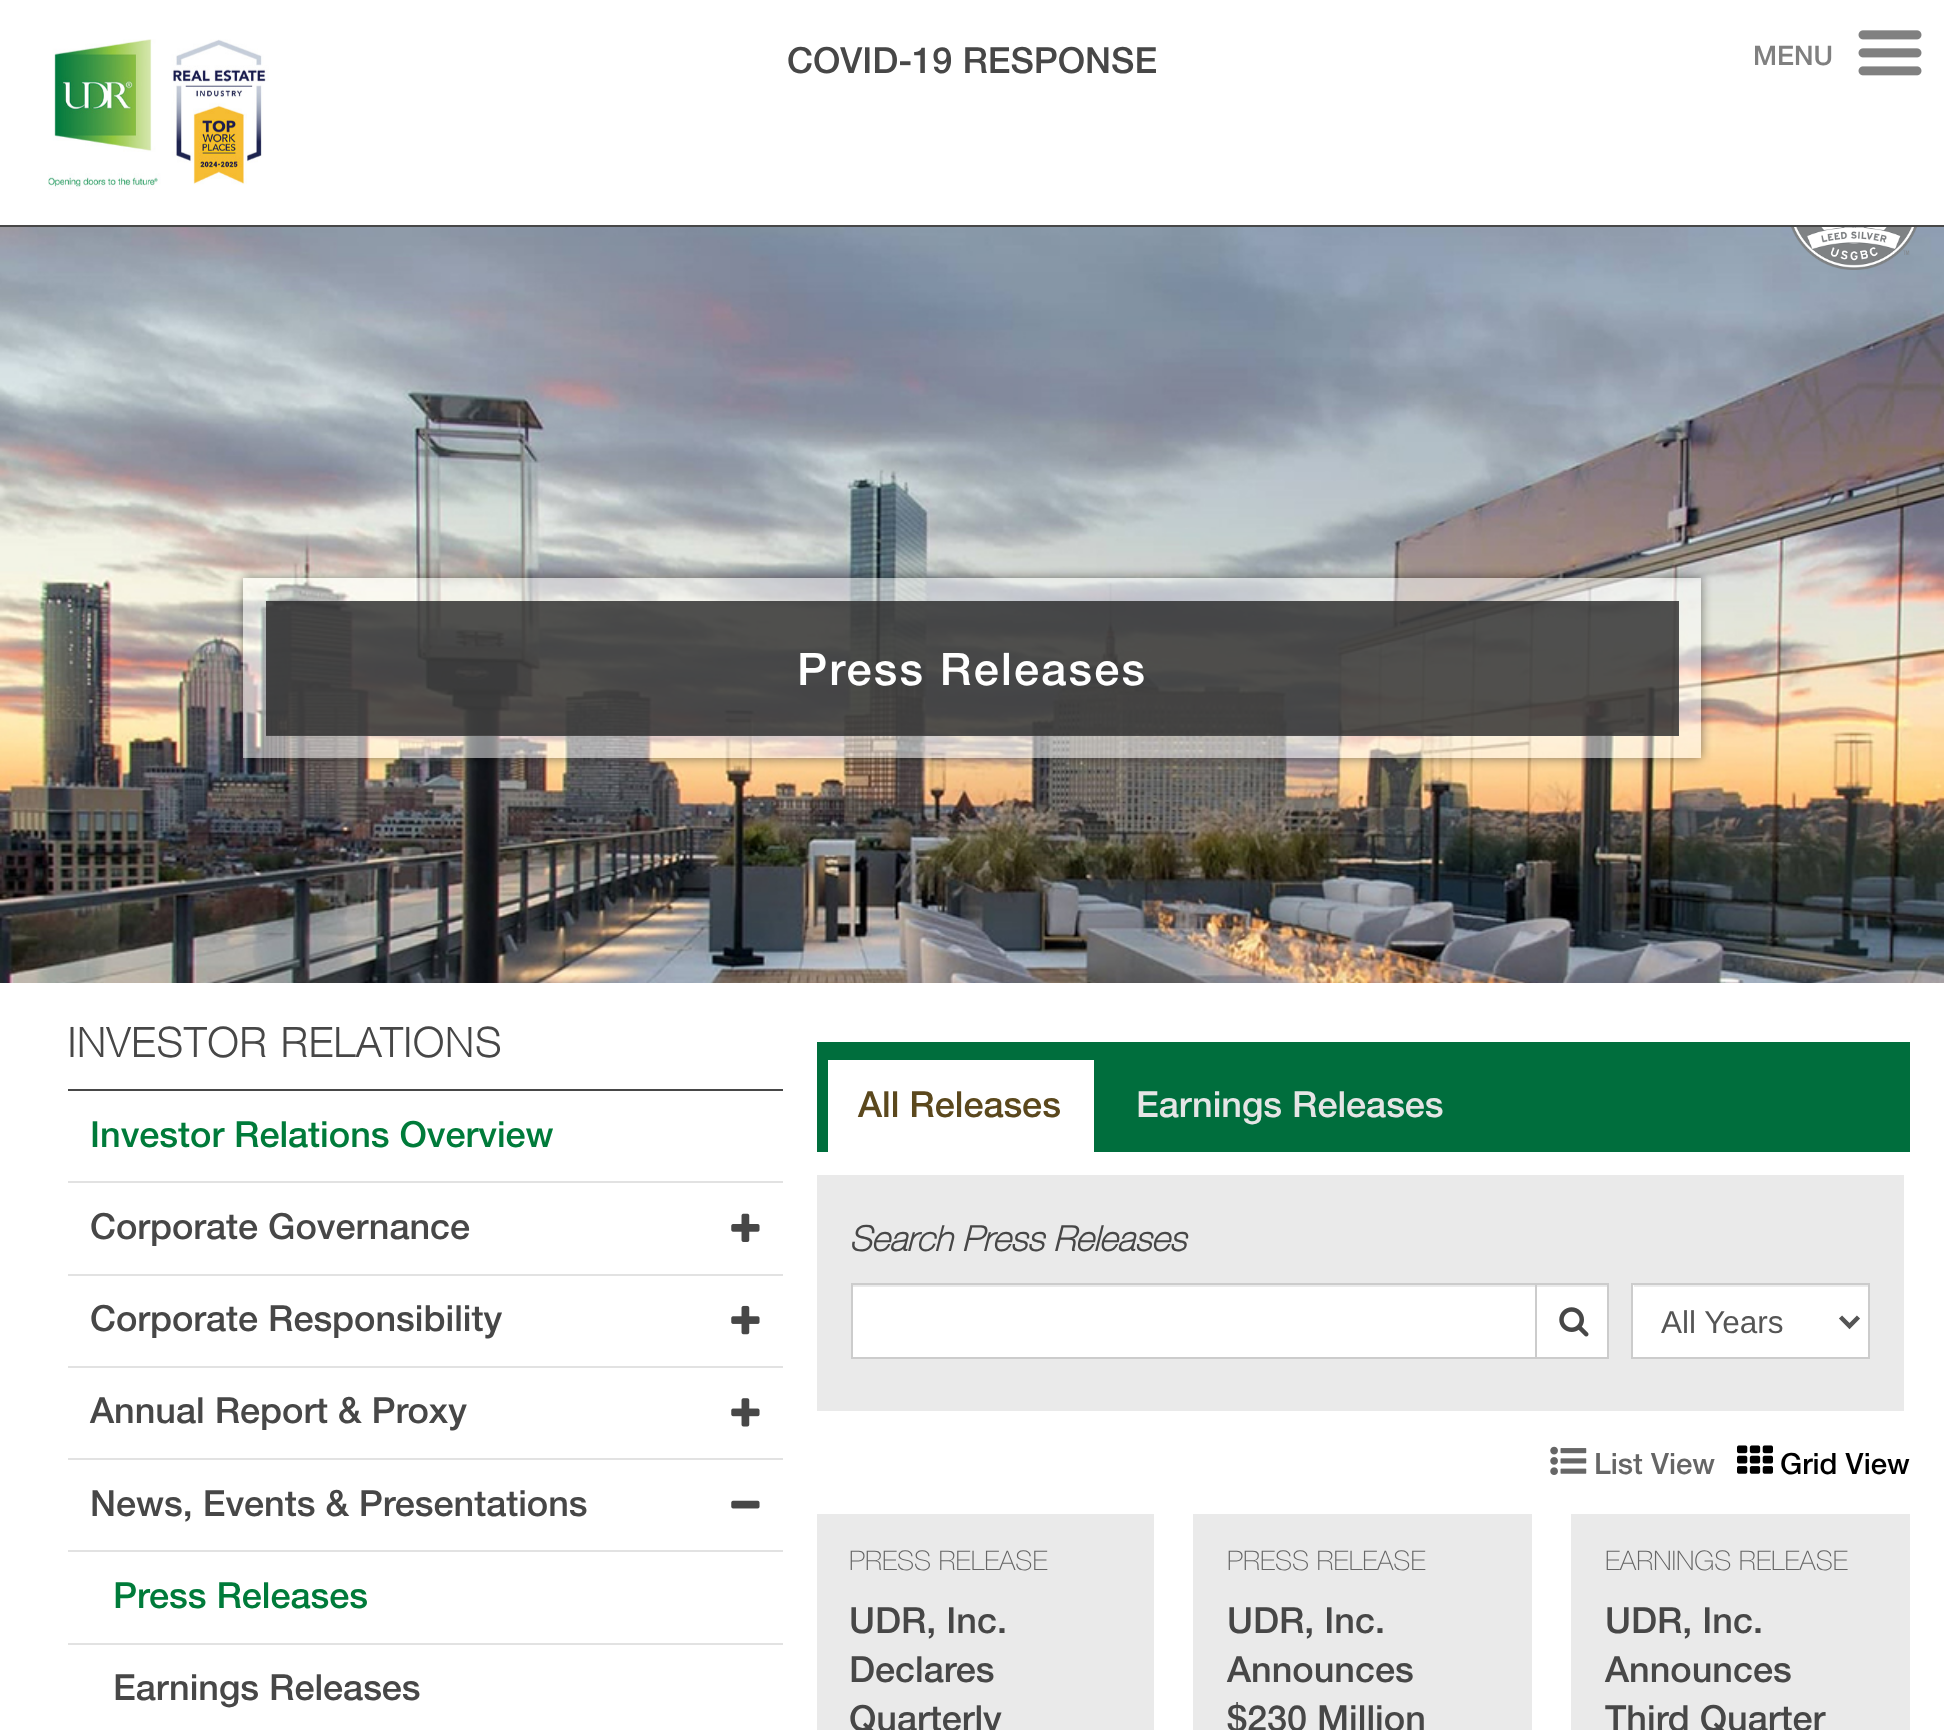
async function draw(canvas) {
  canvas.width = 1944;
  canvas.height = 1730;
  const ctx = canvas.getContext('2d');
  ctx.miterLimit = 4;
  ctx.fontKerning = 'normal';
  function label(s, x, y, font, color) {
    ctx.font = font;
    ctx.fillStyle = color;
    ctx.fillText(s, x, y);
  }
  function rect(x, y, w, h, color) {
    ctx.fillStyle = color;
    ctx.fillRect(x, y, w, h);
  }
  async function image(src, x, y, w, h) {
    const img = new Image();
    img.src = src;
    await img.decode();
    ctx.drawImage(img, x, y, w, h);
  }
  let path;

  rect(0, 0, 1944, 1730, '#fff');
  rect(0, 225, 1944, 2, '#474747');
  await image('assets/img1.png', 48, 39, 221, 151);
  label('COVID-19 RESPONSE', 787, 73, '500 36px "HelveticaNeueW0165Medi"', '#474747');
  label('MENU', 1753, 65, '500 27px "HelveticaNeueW0165Medi"', '#808080');
  await image('assets/img2.png', 1858, 30, 64, 46);
  await image('assets/img3.png', 0, 227, 1944, 756);
  await image('assets/img4.png', 1790, 227, 128, 43);
  ctx.save();
  path = new Path2D('M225 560H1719V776H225ZM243 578H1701V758H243Z');
  ctx.clip(path, 'evenodd');
  ctx.fillStyle = '#00000080';
  ctx.filter = 'blur(5.5px)';
  ctx.beginPath();
  ctx.rect(243, 578, 1458, 180);
  ctx.fill();
  ctx.filter = 'none';
  ctx.restore();
  ctx.strokeStyle = '#ffffff80';
  ctx.lineWidth = 23;
  ctx.strokeRect(254.5, 589.5, 1435, 157);
  rect(266, 601, 1413, 135, '#3e3e3ee6');
  ctx.letterSpacing = '2.25px';
  label('Press Releases', 797, 685, '500 45px "HelveticaNeueW0165Medi"', '#fff');
  rect(68, 1089, 715, 2, '#474747');
  label('INVESTOR RELATIONS', 68, 1057, 'bold 40.5px "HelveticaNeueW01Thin"', '#474747');
  rect(68, 1181, 715, 2, '#e2e2e2');
  ctx.letterSpacing = '0px';
  label('Investor Relations Overview', 90, 1147, '500 36px "HelveticaNeueW0165Medi"', '#007b3a');
  rect(68, 1274, 715, 2, '#e2e2e2');
  label('Corporate Governance', 90, 1239, '500 36px "HelveticaNeueW0165Medi"', '#474747');
  await image('assets/img5.png', 731, 1213, 29, 29);
  rect(68, 1366, 715, 2, '#e2e2e2');
  label('Corporate Responsibility', 90, 1331, '500 36px "HelveticaNeueW0165Medi"', '#474747');
  await image('assets/img6.png', 731, 1305, 29, 30);
  rect(68, 1458, 715, 2, '#e2e2e2');
  label('Annual Report & Proxy', 90, 1423, '500 36px "HelveticaNeueW0165Medi"', '#474747');
  await image('assets/img7.png', 731, 1398, 29, 29);
  rect(68, 1550, 715, 2, '#e2e2e2');
  label('News, Events & Presentations', 90, 1516, '500 36px "HelveticaNeueW0165Medi"', '#474747');
  await image('assets/img8.png', 731, 1500, 29, 9);
  rect(68, 1643, 715, 2, '#e2e2e2');
  label('Press Releases', 113, 1608, '500 36px "HelveticaNeueW0165Medi"', '#007b3a');
  label('Earnings Releases', 113, 1700, '500 36px "HelveticaNeueW0165Medi"', '#474747');
  rect(817, 1042, 1093, 110, '#006e3d');
  rect(828, 1060, 266, 92, '#fff');
  label('All Releases', 858, 1117, '500 36px "HelveticaNeueW0165Medi"', '#5b481d');
  label('Earnings Releases', 1136, 1117, '500 36px "HelveticaNeueW0165Medi"', '#e5e5e5');
  rect(817, 1175, 1087, 236, '#eaeaea');
  label('Search Press Releases', 849, 1251, 'italic bold 34.75px "HelveticaNeueW01Thin"', '#474747');
  rect(853, 1287, 754, 70, '#fff');
  ctx.strokeStyle = '#ccc';
  ctx.lineWidth = 2;
  ctx.strokeRect(852, 1284, 756, 74);
  rect(1535, 1283, 2, 76, '#ccc');
  await image('assets/img9.png', 1559, 1307, 30, 30);
  rect(1633, 1285, 235, 72, '#fff');
  rect(1634, 1285, 234, 2, '#ececec');
  ctx.strokeRect(1632, 1284, 237, 74);
  path = new Path2D('M1840.5 1317L1849.5 1326L1858.5 1317');
  ctx.strokeStyle = '#555';
  ctx.lineWidth = 4.5;
  ctx.stroke(path);
  label('All Years', 1661, 1333, '31.5px Liberation Sans', '#555');
  await image('assets/img10.png', 1550, 1446, 37, 29);
  label('List View', 1594, 1474, '500 29.25px "HelveticaNeueW0165Medi"', '#666');
  await image('assets/img11.png', 1737, 1445, 36, 29);
  label('Grid View', 1780, 1474, '500 29.25px "HelveticaNeueW0165Medi"', '#000');
  rect(817, 1514, 337, 216, '#eaeaea');
  label('PRESS RELEASE', 849, 1570, '100 27px "HelveticaNeueW01Thin"', '#666');
  label('UDR, Inc.', 849, 1633, '500 36px "HelveticaNeueW0165Medi"', '#474747');
  label('Declares', 849, 1682, '500 36px "HelveticaNeueW0165Medi"', '#474747');
  label('Quarterly', 849, 1731, '500 36px "HelveticaNeueW0165Medi"', '#474747');
  rect(1193, 1514, 339, 216, '#eaeaea');
  label('PRESS RELEASE', 1227, 1570, '100 27px "HelveticaNeueW01Thin"', '#666');
  label('UDR, Inc.', 1227, 1633, '500 36px "HelveticaNeueW0165Medi"', '#474747');
  label('Announces', 1227, 1682, '500 36px "HelveticaNeueW0165Medi"', '#474747');
  label('$230 Million', 1227, 1731, '500 36px "HelveticaNeueW0165Medi"', '#474747');
  rect(1571, 1514, 339, 216, '#eaeaea');
  label('EARNINGS RELEASE', 1605, 1570, '100 27px "HelveticaNeueW01Thin"', '#666');
  label('UDR, Inc.', 1605, 1633, '500 36px "HelveticaNeueW0165Medi"', '#474747');
  label('Announces', 1605, 1682, '500 36px "HelveticaNeueW0165Medi"', '#474747');
  label('Third Quarter', 1605, 1731, '500 36px "HelveticaNeueW0165Medi"', '#474747');
}

draw(document.querySelector('canvas'));
